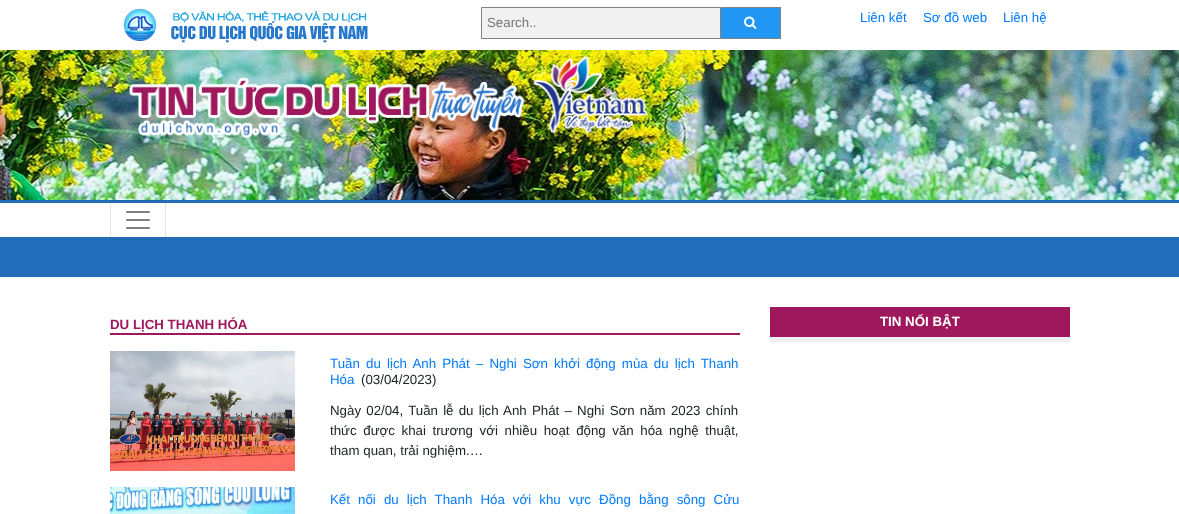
async function draw(canvas) {
  canvas.width = 1179;
  canvas.height = 514;
  const ctx = canvas.getContext('2d');
  ctx.miterLimit = 4;
  ctx.fontKerning = 'normal';
  function label(s, x, y, font, color) {
    ctx.font = font;
    ctx.fillStyle = color;
    ctx.fillText(s, x, y);
  }
  function rect(x, y, w, h, color) {
    ctx.fillStyle = color;
    ctx.fillRect(x, y, w, h);
  }
  async function image(src, x, y, w, h) {
    const img = new Image();
    img.src = src;
    await img.decode();
    ctx.drawImage(img, x, y, w, h);
  }

  rect(0, 0, 1179, 514, '#fff');
  await image('assets/img1.png', 124, 9, 244, 34);
  ctx.fillStyle = '#f1f1f1';
  ctx.beginPath();
  ctx.rect(481.5, 7.5, 239, 31);
  ctx.fill();
  ctx.strokeStyle = '#808080';
  ctx.stroke();
  label('Search..', 487, 27, '13.3px Liberation Sans', '#757575');
  rect(721, 8, 59, 30, '#2196f3');
  rect(721, 7, 60, 1, '#808080');
  rect(780, 7, 1, 32, '#808080');
  rect(721, 38, 60, 1, '#808080');
  await image('assets/img2.png', 744, 16, 13, 13);
  label('Liên kết', 860, 22, '13.3px Liberation Sans', '#007bff');
  label('Sơ đồ web', 923, 22, '13.3px Liberation Sans', '#007bff');
  label('Liên hệ', 1003, 22, '13.3px Liberation Sans', '#007bff');
  await image('assets/img3.png', 0, 50, 1179, 150);
  await image('assets/img4.png', 129, 55, 519, 84);
  await image('assets/img5.png', 0, 200, 1179, 77);
  ctx.beginPath();
  ctx.roundRect(110.5, 200.5, 55, 39, 3.5);
  ctx.strokeStyle = '#0000001a';
  ctx.stroke();
  await image('assets/img6.png', 126, 211, 24, 18);
  rect(110, 333, 630, 2, '#9f175c');
  label('DU LỊCH THANH HÓA', 110, 329, 'bold 13.3px Liberation Sans', '#9f175c');
  await image('assets/img7.png', 110, 351, 185, 120);
  ctx.wordSpacing = '2.5px';
  label('Tuần du lịch Anh Phát – Nghi Sơn khởi động mùa du lịch Thanh', 330, 368, '13.3px Liberation Sans', '#007bff');
  ctx.wordSpacing = '0px';
  label('Hóa', 330, 384, '13.3px Liberation Sans', '#007bff');
  label('(03/04/2023)', 361, 384, '13.3px Liberation Sans', '#212529');
  ctx.wordSpacing = '1.5px';
  label('Ngày 02/04, Tuần lễ du lịch Anh Phát – Nghi Sơn năm 2023 chính', 330, 415, '13.3px Liberation Sans', '#212529');
  ctx.wordSpacing = '2.9px';
  label('thức được khai trương với nhiều hoạt động văn hóa nghệ thuật,', 330, 435, '13.3px Liberation Sans', '#212529');
  ctx.wordSpacing = '0px';
  label('tham quan, trải nghiệm.…', 330, 455, '13.3px Liberation Sans', '#212529');
  await image('assets/img8.png', 110, 487, 185, 27);
  ctx.wordSpacing = '4.4px';
  label('Kết nối du lịch Thanh Hóa với khu vực Đồng bằng sông Cửu', 330, 504, '13.3px Liberation Sans', '#007bff');
  rect(770, 307, 300, 30, '#9f175c');
  ctx.wordSpacing = '0px';
  label('TIN NỔI BẬT', 880, 326, 'bold 13.3px Liberation Sans', '#fff');
  rect(770, 337, 300, 5, '#f1f1f1');
}

draw(document.querySelector('canvas'));
